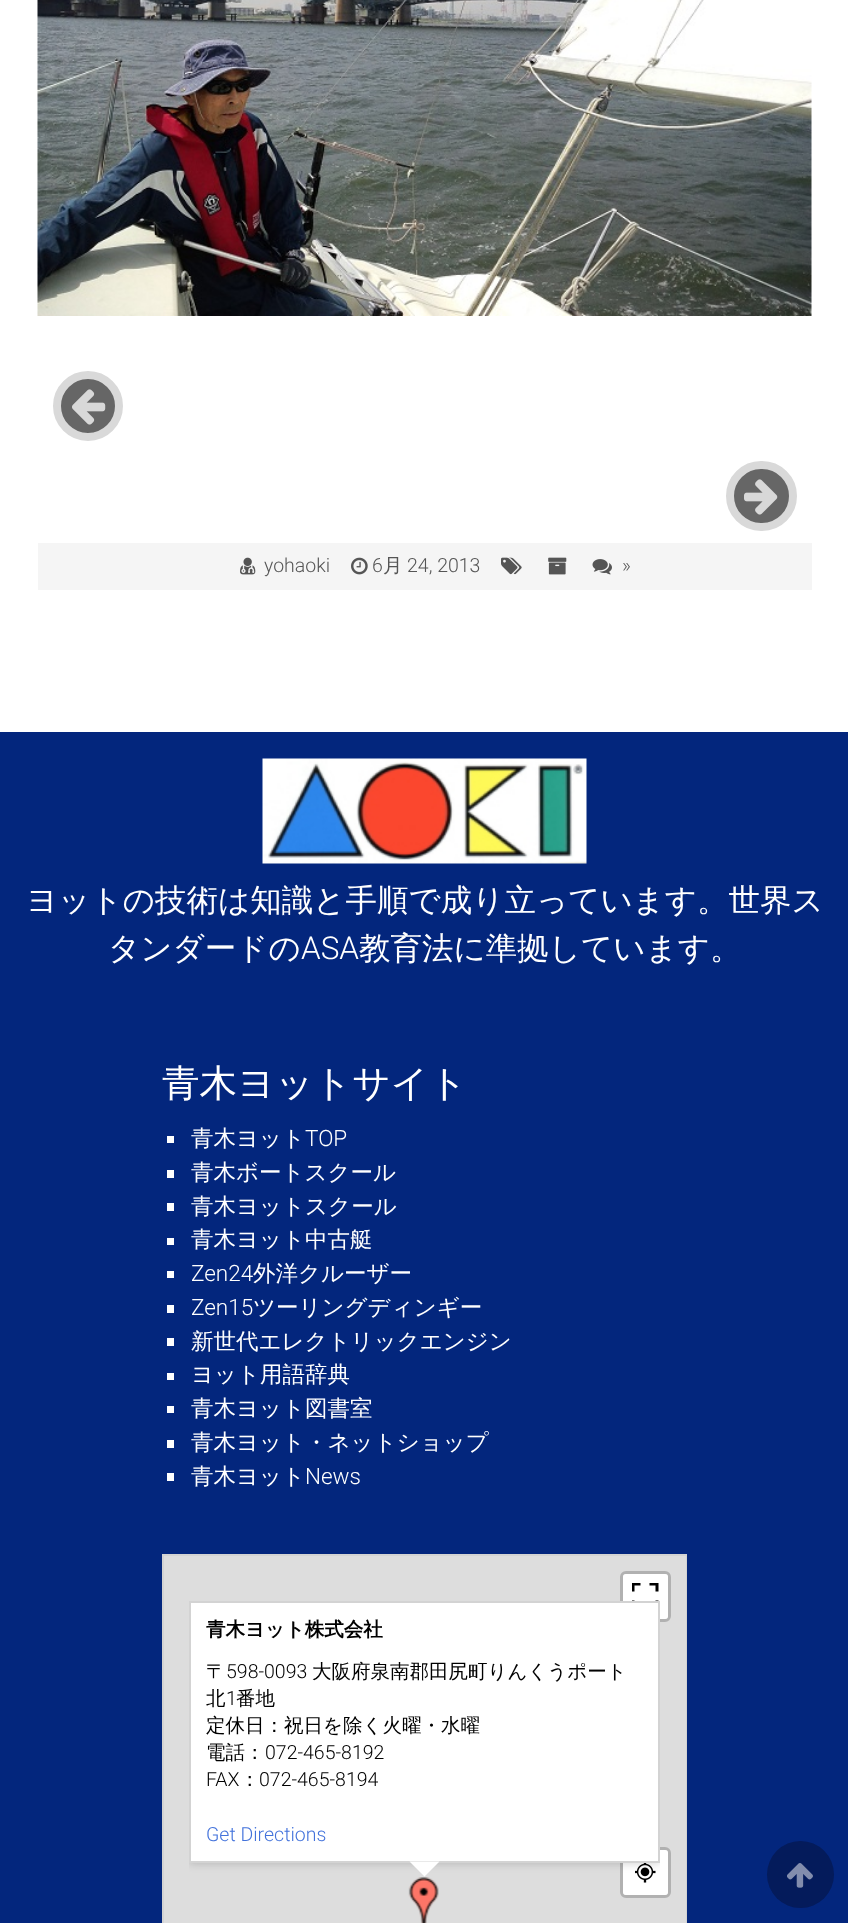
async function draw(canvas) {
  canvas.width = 848;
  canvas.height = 1923;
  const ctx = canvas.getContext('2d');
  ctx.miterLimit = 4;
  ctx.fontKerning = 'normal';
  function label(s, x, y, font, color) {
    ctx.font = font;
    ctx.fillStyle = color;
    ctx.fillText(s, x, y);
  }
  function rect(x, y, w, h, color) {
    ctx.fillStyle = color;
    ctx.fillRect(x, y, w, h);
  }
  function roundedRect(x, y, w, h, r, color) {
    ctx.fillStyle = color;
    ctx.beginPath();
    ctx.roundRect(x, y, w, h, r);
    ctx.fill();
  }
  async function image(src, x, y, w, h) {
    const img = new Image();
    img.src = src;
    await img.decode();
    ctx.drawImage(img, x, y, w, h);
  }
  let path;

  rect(0, 0, 848, 1923, '#fff');
  await image('assets/img1.png', 37, 0, 775, 316);
  ctx.fillStyle = '#666';
  ctx.beginPath();
  ctx.arc(88, 406, 31, 0, 2 * Math.PI);
  ctx.fill();
  ctx.strokeStyle = '#d9d9d9';
  ctx.lineWidth = 8;
  ctx.stroke();
  await image('assets/img2.png', 72, 389, 34, 36);
  ctx.beginPath();
  ctx.roundRect(730, 465, 63, 62, 31);
  ctx.fill();
  ctx.stroke();
  await image('assets/img3.png', 744, 479, 34, 36);
  rect(38, 543, 774, 47, '#f5f5f5');
  await image('assets/img4.png', 240, 557, 16, 18);
  label('yohaoki', 264, 572, '300 19.5px Roboto', '#555');
  await image('assets/img5.png', 351, 557, 17, 18);
  label('6', 372, 572, '300 19.5px Roboto', '#555');
  label('月', 383, 572, '500 19.5px WenQuanYi Zen Hei', '#555');
  label('24, 2013', 407, 572, '300 19.5px Roboto', '#555');
  await image('assets/img6.png', 501, 557, 21, 18);
  await image('assets/img7.png', 548, 557, 19, 18);
  await image('assets/img8.png', 592, 559, 20, 16);
  label('»', 622, 572, '300 19.5px Roboto', '#555');
  rect(0, 732, 848, 1191, '#03267d');
  await image('assets/img9.png', 262, 758, 325, 106);
  label('ヨットの技術は知識と手順で成り立っています。世界ス', 26, 911, '500 31.5px WenQuanYi Zen Hei', '#fff');
  label('タンダードの', 108, 959, '500 31.5px WenQuanYi Zen Hei', '#fff');
  label('ASA', 301, 959, '300 31.5px Roboto', '#fff');
  label('教育法に準拠しています。', 359, 959, '500 31.5px WenQuanYi Zen Hei', '#fff');
  label('青木ヨットサイト', 162, 1096, '500 37.5px WenQuanYi Zen Hei', '#fff');
  rect(167, 1136, 7, 7, '#fff');
  label('青木ヨット', 191, 1146, '500 22.5px WenQuanYi Zen Hei', '#fff');
  label('TOP', 305, 1146, '300 22.5px Roboto', '#fff');
  rect(167, 1170, 7, 8, '#fff');
  label('青木ボートスクール', 191, 1180, '500 22.5px WenQuanYi Zen Hei', '#fff');
  rect(167, 1203, 7, 8, '#fff');
  label('青木ヨットスクール', 191, 1214, '500 22.5px WenQuanYi Zen Hei', '#fff');
  rect(167, 1238, 7, 7, '#fff');
  label('青木ヨット中古艇', 191, 1247, '500 22.5px WenQuanYi Zen Hei', '#fff');
  rect(167, 1271, 7, 7, '#fff');
  label('Zen24', 191, 1281, '300 22.5px Roboto', '#fff');
  label('外洋クルーザー', 253, 1281, '500 22.5px WenQuanYi Zen Hei', '#fff');
  rect(167, 1305, 7, 8, '#fff');
  label('Zen15', 191, 1315, '300 22.5px Roboto', '#fff');
  label('ツーリングディンギー', 253, 1315, '500 22.5px WenQuanYi Zen Hei', '#fff');
  rect(167, 1338, 7, 8, '#fff');
  label('新世代エレクトリックエンジン', 191, 1349, '500 22.5px WenQuanYi Zen Hei', '#fff');
  rect(167, 1373, 7, 7, '#fff');
  label('ヨット用語辞典', 191, 1382, '500 22.5px WenQuanYi Zen Hei', '#fff');
  rect(167, 1406, 7, 7, '#fff');
  label('青木ヨット図書室', 191, 1416, '500 22.5px WenQuanYi Zen Hei', '#fff');
  rect(167, 1440, 7, 8, '#fff');
  label('青木ヨット・ネットショップ', 191, 1450, '500 22.5px WenQuanYi Zen Hei', '#fff');
  rect(167, 1473, 7, 8, '#fff');
  label('青木ヨット', 191, 1484, '500 22.5px WenQuanYi Zen Hei', '#fff');
  label('News', 305, 1484, '300 22.5px Roboto', '#fff');
  ctx.strokeStyle = '#d3d3d3';
  ctx.lineWidth = 2;
  ctx.strokeRect(163, 1555, 523, 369);
  rect(164, 1556, 522, 367, '#ddd');
  await image('assets/img10.png', 408, 1877, 31, 46);
  ctx.beginPath();
  ctx.roundRect(621.5, 1572.5, 48, 48, 4.5);
  ctx.strokeStyle = '#b1b1b1';
  ctx.lineWidth = 3;
  ctx.stroke();
  roundedRect(623, 1574, 45, 45, 3, '#fff');
  await image('assets/img11.png', 632, 1583, 27, 18);
  ctx.beginPath();
  ctx.roundRect(621.5, 1848.5, 48, 48, 4.5);
  ctx.stroke();
  roundedRect(623, 1850, 45, 45, 3, '#fff');
  await image('assets/img12.png', 635, 1863, 21, 20);
  ctx.save();
  ctx.beginPath();
  ctx.rect(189, 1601, 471, 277);
  ctx.clip();
  ctx.fillStyle = '#00000033';
  ctx.filter = 'blur(5px)';
  ctx.beginPath();
  ctx.rect(189, 1601, 471, 262);
  ctx.fill();
  ctx.filter = 'none';
  ctx.restore();
  ctx.beginPath();
  ctx.rect(190, 1602, 469, 260);
  ctx.fill();
  ctx.strokeStyle = '#d3d3d3';
  ctx.lineWidth = 2;
  ctx.stroke();
  label('青木ヨット株式会社', 206, 1636, 'bold 19.5px WenQuanYi Zen Hei', '#000');
  label('〒', 206, 1678, '500 19.5px WenQuanYi Zen Hei', '#000');
  label('598-0093', 226, 1678, '300 19.5px Roboto', '#000');
  label('大阪府泉南郡田尻町りんくうポート', 312, 1678, '500 19.5px WenQuanYi Zen Hei', '#000');
  label('北', 206, 1705, '500 19.5px WenQuanYi Zen Hei', '#000');
  label('1', 226, 1705, '300 19.5px Roboto', '#000');
  label('番地', 236, 1705, '500 19.5px WenQuanYi Zen Hei', '#000');
  label('定休日：祝日を除く火曜・水曜', 206, 1732, '500 19.5px WenQuanYi Zen Hei', '#000');
  label('電話：', 206, 1759, '500 19.5px WenQuanYi Zen Hei', '#000');
  label('072-465-8192', 265, 1759, '300 19.5px Roboto', '#000');
  label('FAX', 206, 1786, '300 19.5px Roboto', '#000');
  label('：', 240, 1786, '500 19.5px WenQuanYi Zen Hei', '#000');
  label('072-465-8194', 259, 1786, '300 19.5px Roboto', '#000');
  label('Get Directions', 206, 1841, '300 19.5px Roboto', '#4272db');
  ctx.fillStyle = '#fff';
  path = new Path2D('M409.5 1861.5H439.5L424.5 1876.5Z');
  ctx.fill(path);
  ctx.fillStyle = '#041b5b';
  ctx.beginPath();
  ctx.arc(800.5, 1874.5, 33.5, 0, 2 * Math.PI);
  ctx.fill();
  await image('assets/img13.png', 787, 1863, 26, 25);
}

draw(document.querySelector('canvas'));
